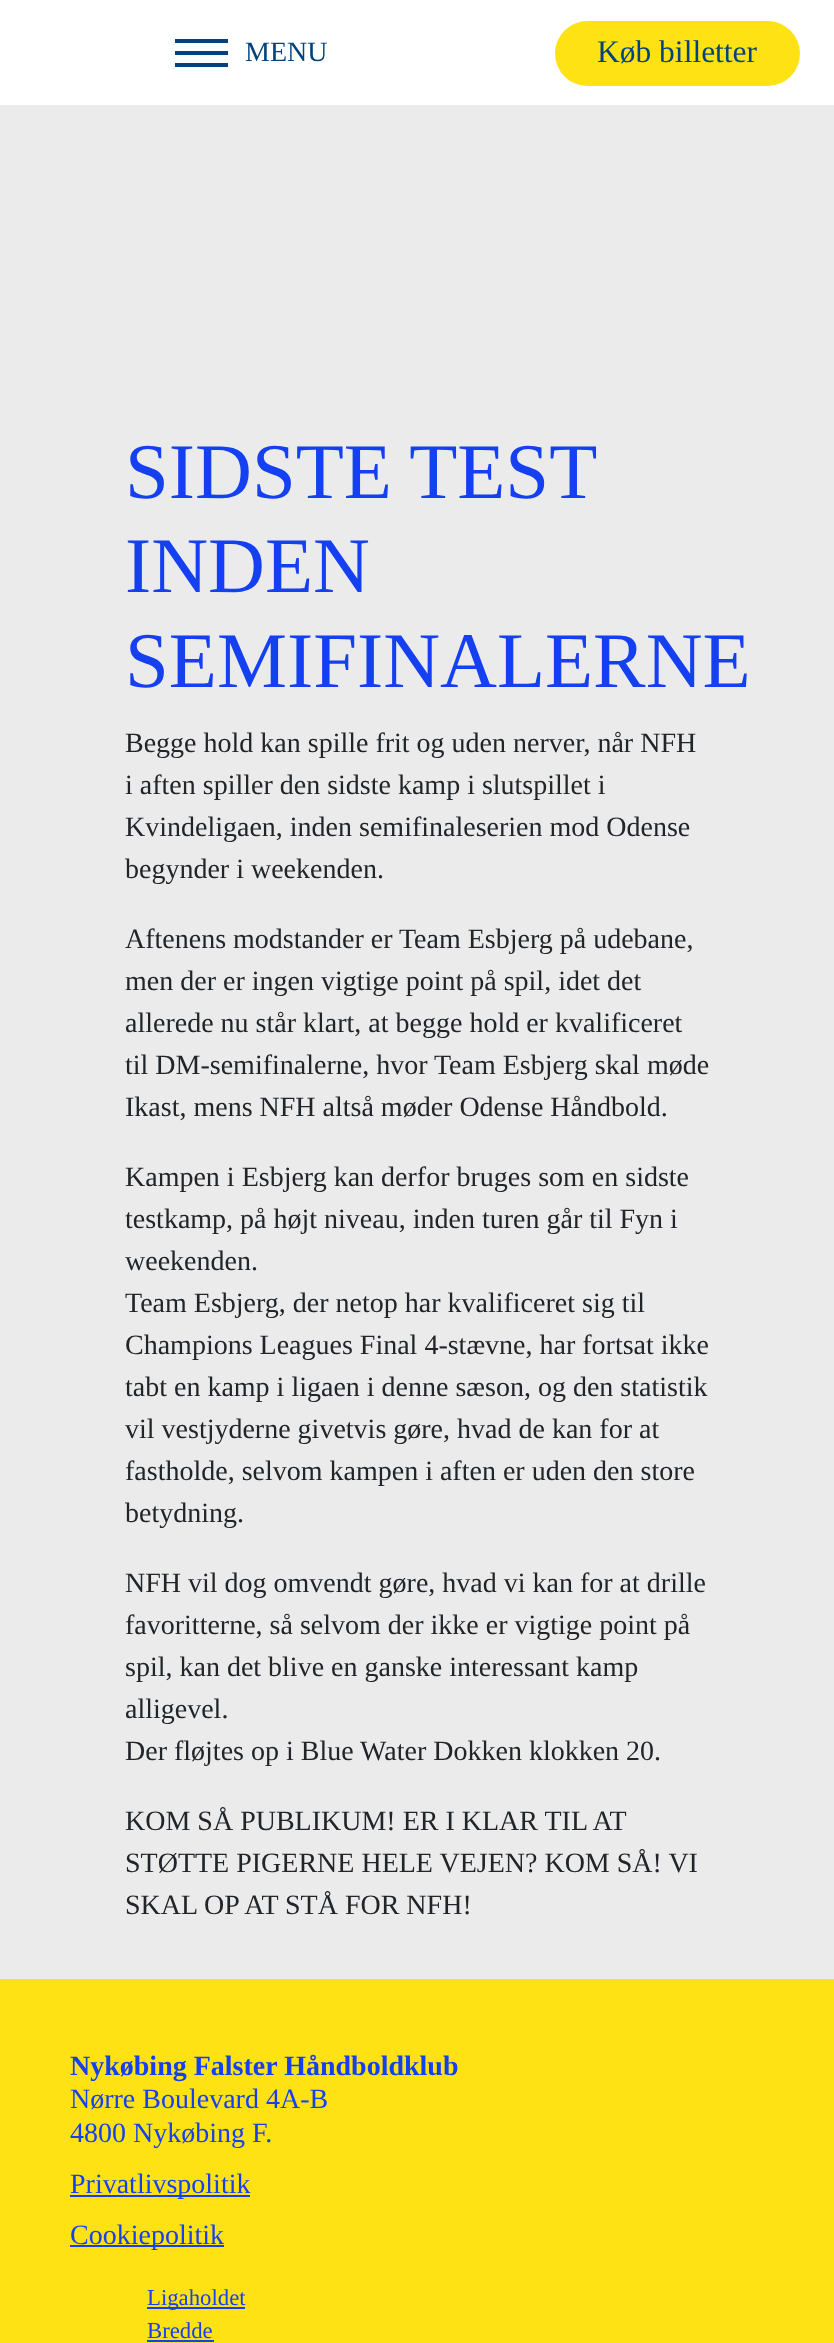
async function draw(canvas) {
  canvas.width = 834;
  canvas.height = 2343;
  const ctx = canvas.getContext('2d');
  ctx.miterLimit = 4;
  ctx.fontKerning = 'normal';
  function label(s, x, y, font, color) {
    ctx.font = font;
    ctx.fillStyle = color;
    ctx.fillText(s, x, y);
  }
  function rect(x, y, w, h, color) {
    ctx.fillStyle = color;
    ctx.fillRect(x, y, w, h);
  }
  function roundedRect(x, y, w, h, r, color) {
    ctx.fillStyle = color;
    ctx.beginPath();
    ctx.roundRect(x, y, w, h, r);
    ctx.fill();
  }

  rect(0, 0, 834, 2343, '#ebebeb');
  rect(0, 0, 834, 105, '#fff');
  rect(175, 39, 53, 4, '#02437e');
  rect(175, 51, 53, 4, '#02437e');
  rect(175, 63, 53, 4, '#02437e');
  label('MENU', 245, 61, '28px Liberation Serif', '#02437e');
  roundedRect(555, 21, 245, 65, 32.5, '#fee214');
  label('Køb billetter', 597, 62, '31.5px Liberation Serif', '#02437e');
  ctx.wordSpacing = '-1px';
  label('SIDSTE TEST', 125, 498, '78.75px Liberation Serif', '#1440f2');
  ctx.wordSpacing = '0px';
  label('INDEN', 125, 592, '78.75px Liberation Serif', '#1440f2');
  label('SEMIFINALERNE', 125, 687, '78.75px Liberation Serif', '#1440f2');
  label('Begge hold kan spille frit og uden nerver, når NFH', 125, 752, '28px Liberation Serif', '#212529');
  label('i aften spiller den sidste kamp i slutspillet i', 125, 794, '28px Liberation Serif', '#212529');
  label('Kvindeligaen, inden semifinaleserien mod Odense', 125, 836, '28px Liberation Serif', '#212529');
  label('begynder i weekenden.', 125, 878, '28px Liberation Serif', '#212529');
  label('Aftenens modstander er Team Esbjerg på udebane,', 125, 948, '28px Liberation Serif', '#212529');
  label('men der er ingen vigtige point på spil, idet det', 125, 990, '28px Liberation Serif', '#212529');
  label('allerede nu står klart, at begge hold er kvalificeret', 125, 1032, '28px Liberation Serif', '#212529');
  label('til DM-semifinalerne, hvor Team Esbjerg skal møde', 125, 1074, '28px Liberation Serif', '#212529');
  label('Ikast, mens NFH altså møder Odense Håndbold.', 125, 1116, '28px Liberation Serif', '#212529');
  label('Kampen i Esbjerg kan derfor bruges som en sidste', 125, 1186, '28px Liberation Serif', '#212529');
  label('testkamp, på højt niveau, inden turen går til Fyn i', 125, 1228, '28px Liberation Serif', '#212529');
  label('weekenden.', 125, 1270, '28px Liberation Serif', '#212529');
  label('Team Esbjerg, der netop har kvalificeret sig til', 125, 1312, '28px Liberation Serif', '#212529');
  label('Champions Leagues Final 4-stævne, har fortsat ikke', 125, 1354, '28px Liberation Serif', '#212529');
  label('tabt en kamp i ligaen i denne sæson, og den statistik', 125, 1396, '28px Liberation Serif', '#212529');
  label('vil vestjyderne givetvis gøre, hvad de kan for at', 125, 1438, '28px Liberation Serif', '#212529');
  label('fastholde, selvom kampen i aften er uden den store', 125, 1480, '28px Liberation Serif', '#212529');
  label('betydning.', 125, 1522, '28px Liberation Serif', '#212529');
  label('NFH vil dog omvendt gøre, hvad vi kan for at drille', 125, 1592, '28px Liberation Serif', '#212529');
  label('favoritterne, så selvom der ikke er vigtige point på', 125, 1634, '28px Liberation Serif', '#212529');
  label('spil, kan det blive en ganske interessant kamp', 125, 1676, '28px Liberation Serif', '#212529');
  label('alligevel.', 125, 1718, '28px Liberation Serif', '#212529');
  label('Der fløjtes op i Blue Water Dokken klokken 20.', 125, 1760, '28px Liberation Serif', '#212529');
  label('KOM SÅ PUBLIKUM! ER I KLAR TIL AT', 125, 1830, '28px Liberation Serif', '#212529');
  label('STØTTE PIGERNE HELE VEJEN? KOM SÅ! VI', 125, 1872, '28px Liberation Serif', '#212529');
  label('SKAL OP AT STÅ FOR NFH!', 125, 1914, '28px Liberation Serif', '#212529');
  rect(0, 1979, 834, 364, '#fee214');
  label('Nykøbing Falster Håndboldklub', 70, 2075, 'bold 28px Liberation Serif', '#1440f2');
  label('Nørre Boulevard 4A-B', 70, 2108, '28px Liberation Serif', '#1440f2');
  label('4800 Nykøbing F.', 70, 2142, '28px Liberation Serif', '#1440f2');
  rect(70, 2195, 180, 2, '#1440f2');
  label('Privatlivspolitik', 70, 2193, '28px Liberation Serif', '#1440f2');
  rect(70, 2245, 154, 2, '#1440f2');
  label('Cookiepolitik', 70, 2244, '28px Liberation Serif', '#1440f2');
  rect(147, 2307, 98, 2, '#1440f2');
  label('Ligaholdet', 147, 2305, '22.75px Liberation Serif', '#1440f2');
  label('Bredde', 147, 2338, '22.75px Liberation Serif', '#1440f2');
  rect(147, 2340, 67, 2, '#1440f2');
}

draw(document.querySelector('canvas'));
